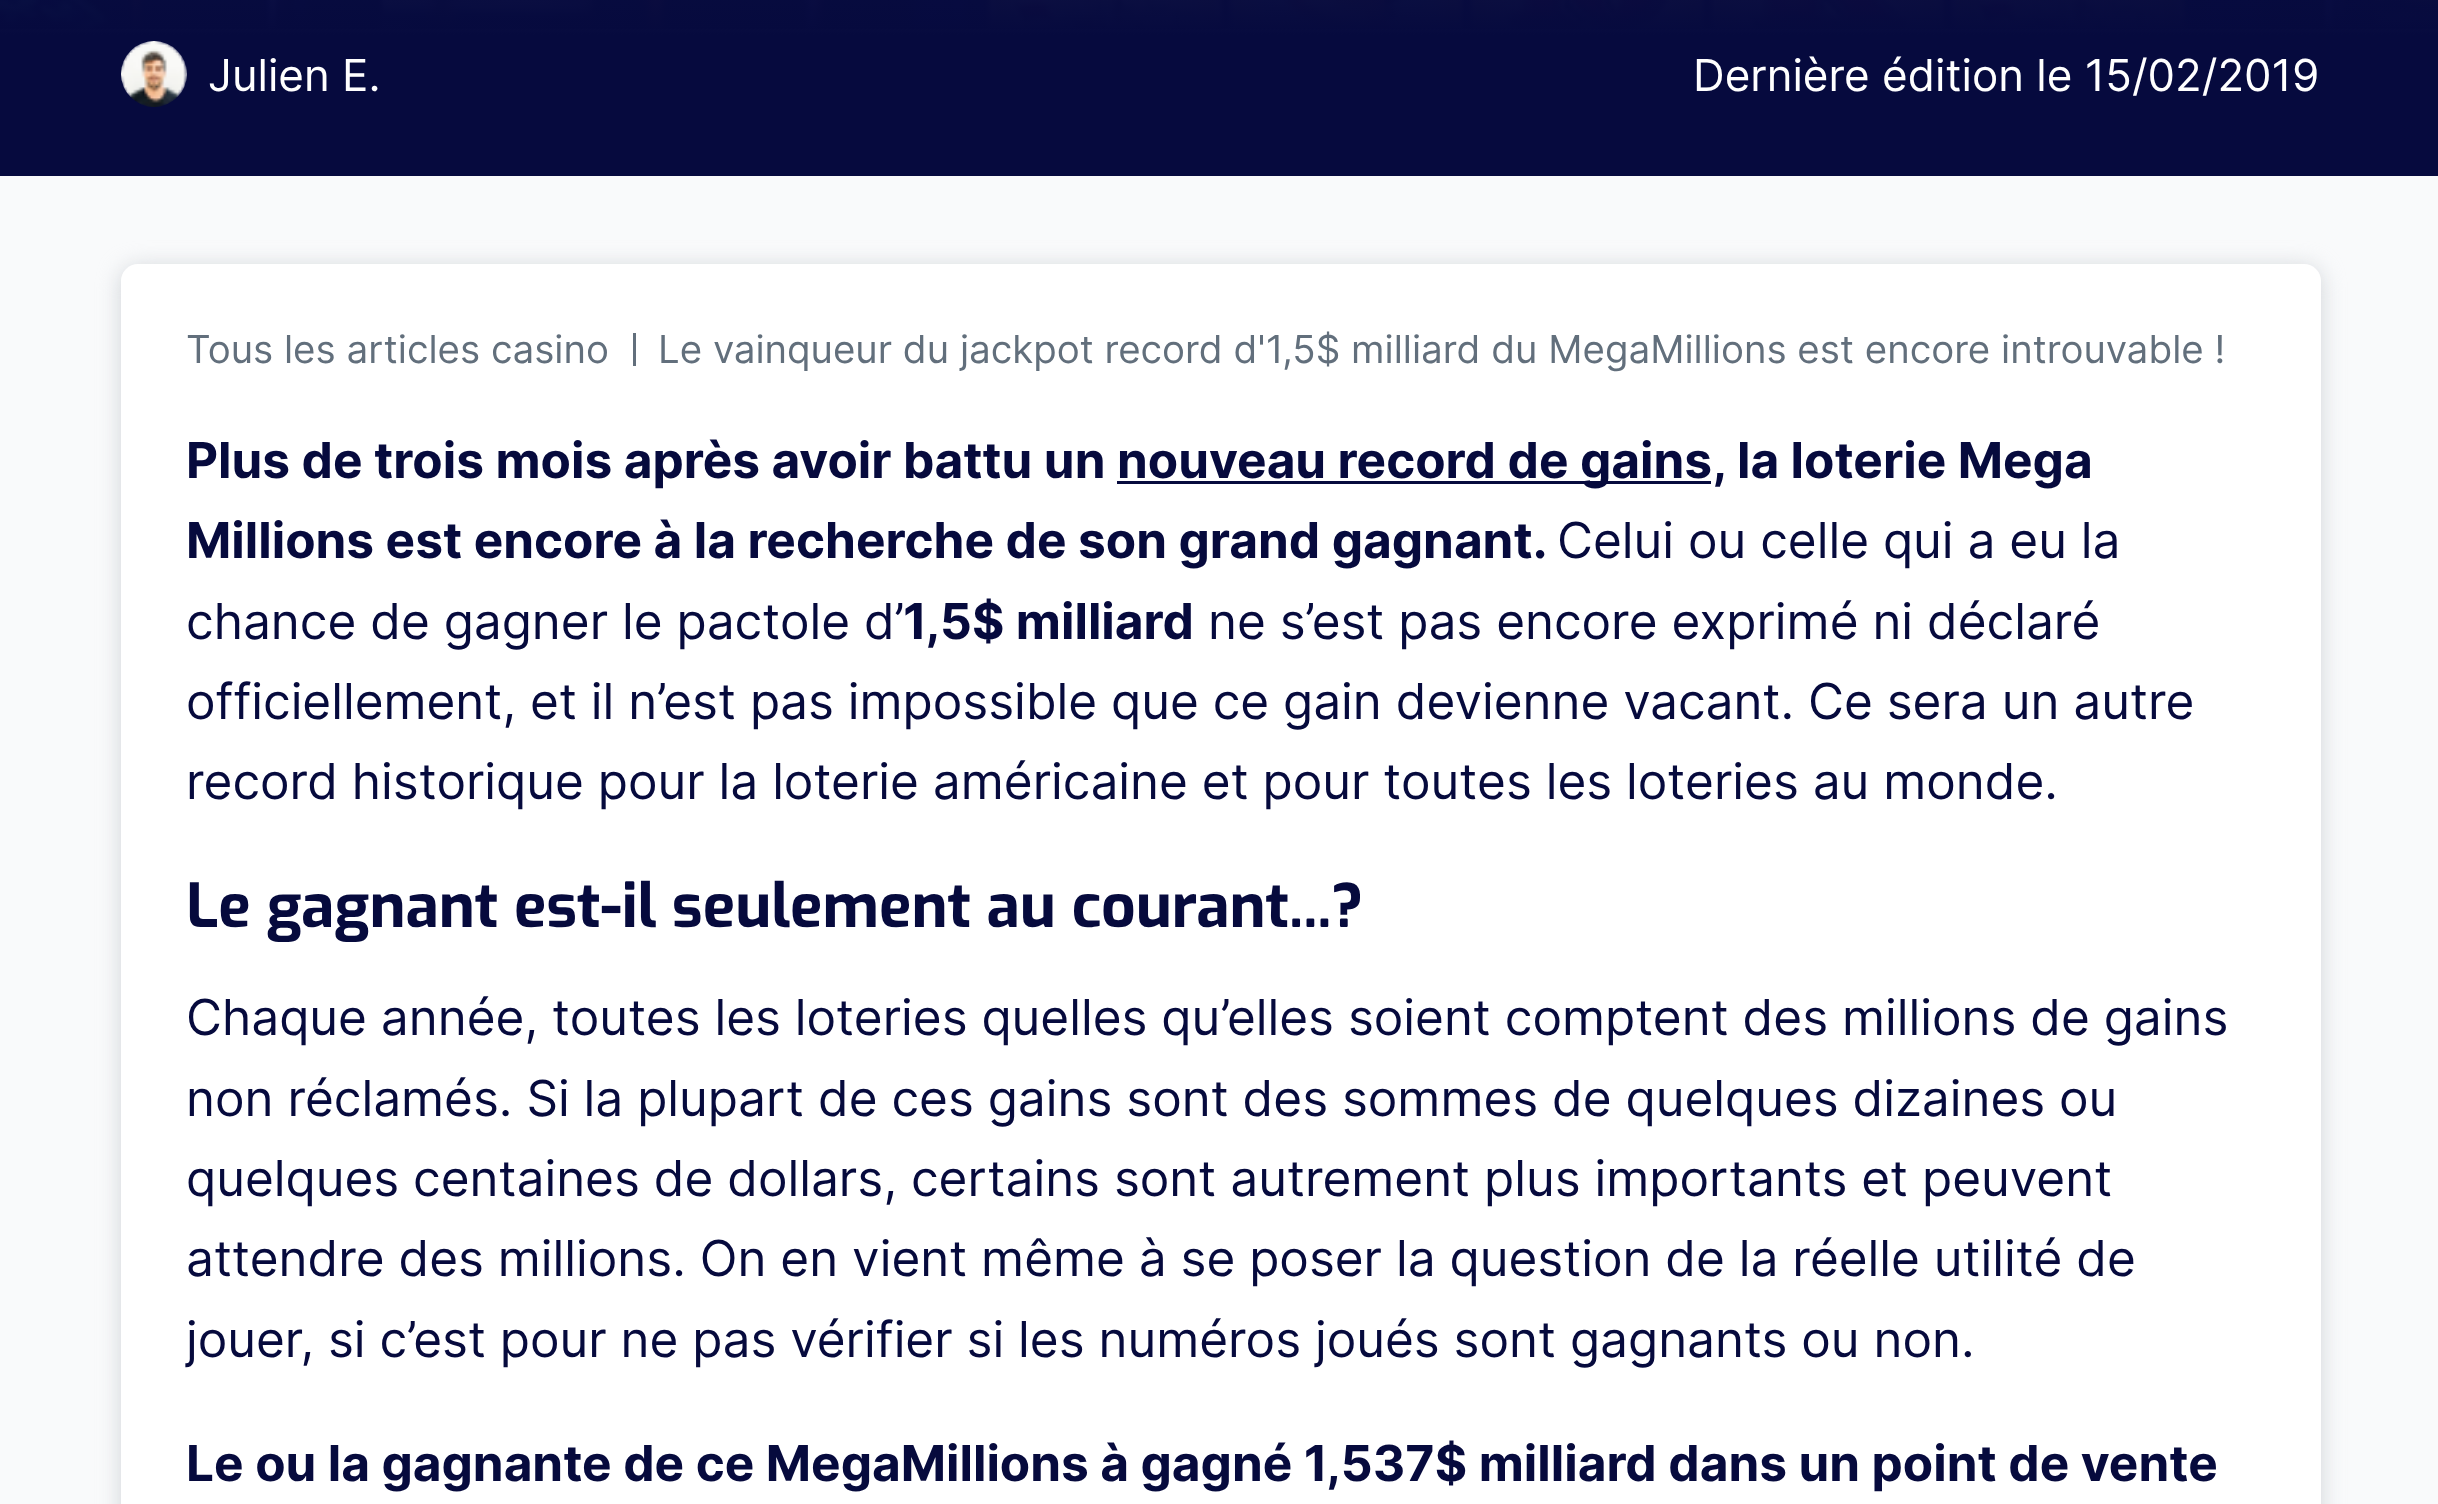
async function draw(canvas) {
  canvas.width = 2438;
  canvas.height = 1504;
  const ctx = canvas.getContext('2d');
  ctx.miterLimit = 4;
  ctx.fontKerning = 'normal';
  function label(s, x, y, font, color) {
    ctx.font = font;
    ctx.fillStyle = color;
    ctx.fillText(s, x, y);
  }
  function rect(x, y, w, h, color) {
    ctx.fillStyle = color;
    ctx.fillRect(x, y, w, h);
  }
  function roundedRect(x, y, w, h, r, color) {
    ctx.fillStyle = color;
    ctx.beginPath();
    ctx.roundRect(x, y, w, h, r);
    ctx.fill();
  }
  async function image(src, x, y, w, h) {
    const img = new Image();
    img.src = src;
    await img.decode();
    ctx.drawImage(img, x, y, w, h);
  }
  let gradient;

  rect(0, 0, 2438, 1504, '#f9fafb');
  await image('assets/img1.png', 0, 0, 2438, 29);
  gradient = ctx.createLinearGradient(1220, -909, 1220, 176);
  gradient.addColorStop(0, '#060a3e00');
  gradient.addColorStop(0.87, '#060a3e');
  ctx.fillStyle = gradient;
  ctx.fillRect(0, 0, 2438, 176);
  await image('assets/img2.png', 121, 41, 66, 66);
  label('Julien E.', 208, 91, '44px Inter', '#fff');
  label('Dernière édition le 15/02/2019', 1693, 91, '44px Inter', '#fff');
  ctx.fillStyle = '#d0d4d8';
  ctx.filter = 'blur(11px)';
  ctx.beginPath();
  ctx.roundRect(121, 267, 2200, 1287, 17);
  ctx.fill();
  ctx.filter = 'none';
  roundedRect(121, 264, 2200, 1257, 17, '#fff');
  label('Tous les articles casino', 186, 363, '38.5px Inter', '#626f7c');
  rect(633, 333, 3, 33, '#626f7c');
  label('Le vainqueur du jackpot record d\'1,5$ milliard du MegaMillions est encore introuvable !', 658, 363, '38.5px Inter', '#626f7c');
  label('Plus de trois mois après avoir battu un', 186, 478, 'bold 49.5px Inter', '#060a3d');
  rect(1117, 481, 594, 3, '#060a3d');
  label('nouveau record de gains, la loterie Mega', 1117, 478, 'bold 49.5px Inter', '#060a3d');
  label('Millions est encore à la recherche de son grand gagnant.', 186, 558, 'bold 49.5px Inter', '#060a3d');
  label('Celui ou celle qui a eu la', 1557, 558, '49.5px Inter', '#060a3d');
  label('chance de gagner le pactole d’', 186, 639, '49.5px Inter', '#060a3d');
  label('1,5$ milliard', 903, 639, 'bold 49.5px Inter', '#060a3d');
  label('ne s’est pas encore exprimé ni déclaré', 1208, 639, '49.5px Inter', '#060a3d');
  label('officiellement, et il n’est pas impossible que ce gain devienne vacant. Ce sera un autre', 186, 719, '49.5px Inter', '#060a3d');
  label('record historique pour la loterie américaine et pour toutes les loteries au monde.', 186, 799, '49.5px Inter', '#060a3d');
  label('Le gagnant est-il seulement au courant...?', 186, 927, 'bold 60.5px Exo', '#060a3d');
  label('Chaque année, toutes les loteries quelles qu’elles soient comptent des millions de gains', 186, 1035, '49.5px Inter', '#060a3d');
  label('non réclamés. Si la plupart de ces gains sont des sommes de quelques dizaines ou', 186, 1116, '49.5px Inter', '#060a3d');
  label('quelques centaines de dollars, certains sont autrement plus importants et peuvent', 186, 1196, '49.5px Inter', '#060a3d');
  label('attendre des millions. On en vient même à se poser la question de la réelle utilité de', 186, 1276, '49.5px Inter', '#060a3d');
  label('jouer, si c’est pour ne pas vérifier si les numéros joués sont gagnants ou non.', 186, 1357, '49.5px Inter', '#060a3d');
  label('Le ou la gagnante de ce MegaMillions à gagné 1,537$ milliard dans un point de vente', 186, 1481, 'bold 49.5px Inter', '#060a3d');
}

draw(document.querySelector('canvas'));
